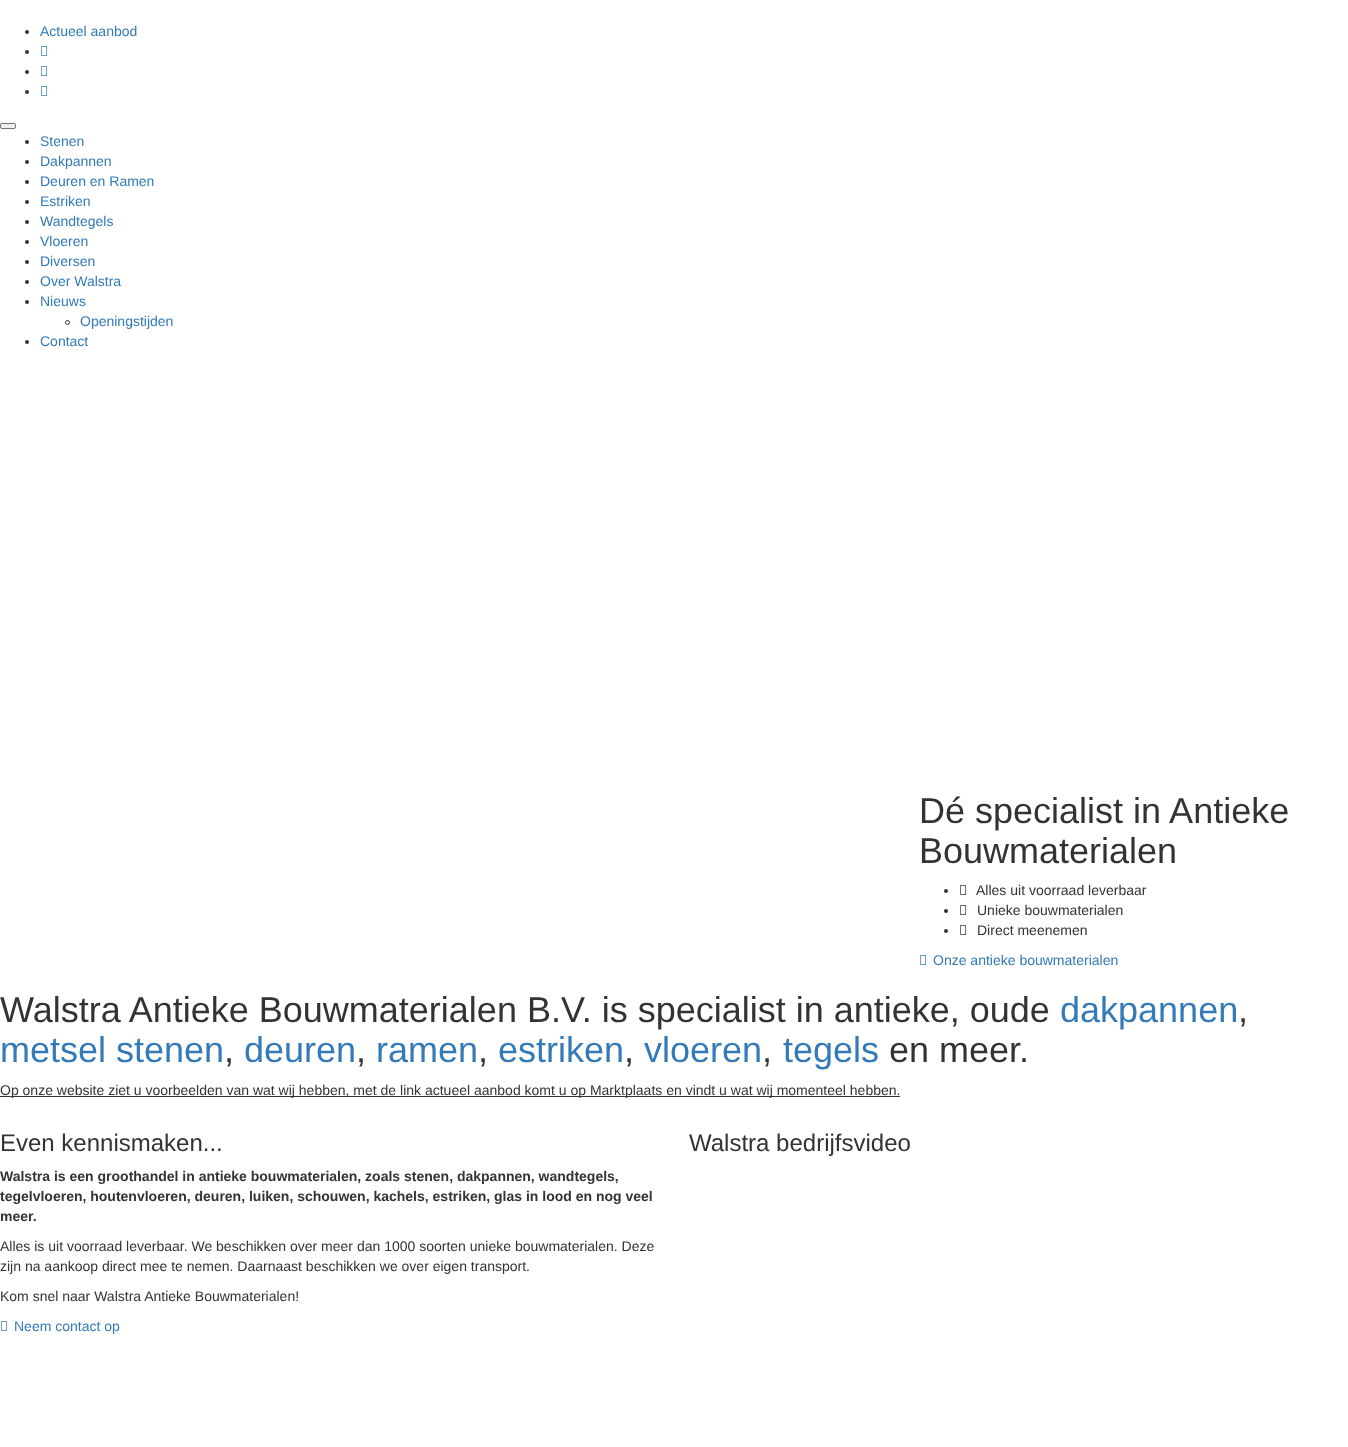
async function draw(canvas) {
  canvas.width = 1348;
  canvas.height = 1447;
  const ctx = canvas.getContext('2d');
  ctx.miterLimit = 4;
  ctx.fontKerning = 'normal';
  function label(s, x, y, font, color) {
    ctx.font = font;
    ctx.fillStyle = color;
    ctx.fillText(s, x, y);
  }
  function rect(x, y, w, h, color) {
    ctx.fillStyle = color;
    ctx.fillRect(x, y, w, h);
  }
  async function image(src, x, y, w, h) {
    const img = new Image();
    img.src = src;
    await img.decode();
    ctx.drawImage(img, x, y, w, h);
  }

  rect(0, 0, 1348, 1447, '#fff');
  ctx.fillStyle = '#333';
  ctx.beginPath();
  ctx.arc(27, 32, 2, 0, 2 * Math.PI);
  ctx.fill();
  label('Actueel aanbod', 40, 36, '14px Liberation Sans', '#337ab7');
  ctx.fillStyle = '#333';
  ctx.beginPath();
  ctx.arc(27, 52, 2, 0, 2 * Math.PI);
  ctx.fill();
  await image('assets/img1.png', 41, 46, 7, 10);
  ctx.beginPath();
  ctx.arc(27, 72, 2, 0, 2 * Math.PI);
  ctx.fill();
  await image('assets/img1.png', 41, 66, 7, 10);
  ctx.beginPath();
  ctx.arc(27, 92, 2, 0, 2 * Math.PI);
  ctx.fill();
  await image('assets/img1.png', 41, 86, 7, 10);
  ctx.fillStyle = '#efefef';
  ctx.beginPath();
  ctx.roundRect(0.5, 123.5, 15, 5, 1.5);
  ctx.fill();
  ctx.strokeStyle = '#767676';
  ctx.stroke();
  ctx.fillStyle = '#333';
  ctx.beginPath();
  ctx.arc(27, 142, 2, 0, 2 * Math.PI);
  ctx.fill();
  label('Stenen', 40, 146, '14px Liberation Sans', '#337ab7');
  ctx.fillStyle = '#333';
  ctx.beginPath();
  ctx.arc(27, 162, 2, 0, 2 * Math.PI);
  ctx.fill();
  label('Dakpannen', 40, 166, '14px Liberation Sans', '#337ab7');
  ctx.fillStyle = '#333';
  ctx.beginPath();
  ctx.arc(27, 182, 2, 0, 2 * Math.PI);
  ctx.fill();
  label('Deuren en Ramen', 40, 186, '14px Liberation Sans', '#337ab7');
  ctx.fillStyle = '#333';
  ctx.beginPath();
  ctx.arc(27, 202, 2, 0, 2 * Math.PI);
  ctx.fill();
  label('Estriken', 40, 206, '14px Liberation Sans', '#337ab7');
  ctx.fillStyle = '#333';
  ctx.beginPath();
  ctx.arc(27, 222, 2, 0, 2 * Math.PI);
  ctx.fill();
  label('Wandtegels', 40, 226, '14px Liberation Sans', '#337ab7');
  ctx.fillStyle = '#333';
  ctx.beginPath();
  ctx.arc(27, 242, 2, 0, 2 * Math.PI);
  ctx.fill();
  label('Vloeren', 40, 246, '14px Liberation Sans', '#337ab7');
  ctx.fillStyle = '#333';
  ctx.beginPath();
  ctx.arc(27, 262, 2, 0, 2 * Math.PI);
  ctx.fill();
  label('Diversen', 40, 266, '14px Liberation Sans', '#337ab7');
  ctx.fillStyle = '#333';
  ctx.beginPath();
  ctx.arc(27, 282, 2, 0, 2 * Math.PI);
  ctx.fill();
  label('Over Walstra', 40, 286, '14px Liberation Sans', '#337ab7');
  ctx.fillStyle = '#333';
  ctx.beginPath();
  ctx.arc(27, 302, 2, 0, 2 * Math.PI);
  ctx.fill();
  label('Nieuws', 40, 306, '14px Liberation Sans', '#337ab7');
  ctx.beginPath();
  ctx.arc(67.5, 322.5, 2, 0, 2 * Math.PI);
  ctx.strokeStyle = '#333';
  ctx.stroke();
  label('Openingstijden', 80, 326, '14px Liberation Sans', '#337ab7');
  ctx.fillStyle = '#333';
  ctx.beginPath();
  ctx.arc(27, 342, 2, 0, 2 * Math.PI);
  ctx.fill();
  label('Contact', 40, 346, '14px Liberation Sans', '#337ab7');
  label('Dé specialist in Antieke', 919, 823, '36px Liberation Sans', '#333');
  label('Bouwmaterialen', 919, 863, '36px Liberation Sans', '#333');
  ctx.beginPath();
  ctx.arc(946, 891, 2, 0, 2 * Math.PI);
  ctx.fill();
  await image('assets/img2.png', 960, 885, 7, 10);
  label('Alles uit voorraad leverbaar', 976, 895, '14px Liberation Sans', '#333');
  ctx.beginPath();
  ctx.arc(946, 911, 2, 0, 2 * Math.PI);
  ctx.fill();
  await image('assets/img2.png', 960, 905, 7, 10);
  label('Unieke bouwmaterialen', 977, 915, '14px Liberation Sans', '#333');
  ctx.beginPath();
  ctx.arc(946, 931, 2, 0, 2 * Math.PI);
  ctx.fill();
  await image('assets/img2.png', 960, 925, 7, 10);
  label('Direct meenemen', 977, 935, '14px Liberation Sans', '#333');
  await image('assets/img1.png', 920, 955, 7, 10);
  label('Onze antieke bouwmaterialen', 933, 965, '14px Liberation Sans', '#337ab7');
  label('Walstra Antieke Bouwmaterialen B.V. is specialist in antieke, oude', 0, 1022, '36px Liberation Sans', '#333');
  label('dakpannen', 1060, 1022, '36px Liberation Sans', '#337ab7');
  label(',', 1238, 1022, '36px Liberation Sans', '#333');
  label('metsel stenen', 0, 1062, '36px Liberation Sans', '#337ab7');
  label(',', 224, 1062, '36px Liberation Sans', '#333');
  label('deuren', 244, 1062, '36px Liberation Sans', '#337ab7');
  label(',', 356, 1062, '36px Liberation Sans', '#333');
  label('ramen', 376, 1062, '36px Liberation Sans', '#337ab7');
  label(',', 478, 1062, '36px Liberation Sans', '#333');
  label('estriken', 498, 1062, '36px Liberation Sans', '#337ab7');
  label(',', 624, 1062, '36px Liberation Sans', '#333');
  label('vloeren', 644, 1062, '36px Liberation Sans', '#337ab7');
  label(',', 762, 1062, '36px Liberation Sans', '#333');
  label('tegels', 783, 1062, '36px Liberation Sans', '#337ab7');
  label('en meer.', 889, 1062, '36px Liberation Sans', '#333');
  rect(0, 1096, 900, 1, '#333');
  label('Op onze website ziet u voorbeelden van wat wij hebben, met de link actueel aanbod komt u op Marktplaats en vindt u wat wij momenteel hebben.', 0, 1095, '14px Liberation Sans', '#333');
  label('Even kennismaken...', 0, 1151, '24px Liberation Sans', '#333');
  label('Walstra is een groothandel in antieke bouwmaterialen, zoals stenen, dakpannen, wandtegels,', 0, 1181, 'bold 14px Liberation Sans', '#333');
  label('tegelvloeren, houtenvloeren, deuren, luiken, schouwen, kachels, estriken, glas in lood en nog veel', 0, 1201, 'bold 14px Liberation Sans', '#333');
  label('meer.', 0, 1221, 'bold 14px Liberation Sans', '#333');
  label('Alles is uit voorraad leverbaar. We beschikken over meer dan 1000 soorten unieke bouwmaterialen. Deze', 0, 1251, '14px Liberation Sans', '#333');
  label('zijn na aankoop direct mee te nemen. Daarnaast beschikken we over eigen transport.', 0, 1271, '14px Liberation Sans', '#333');
  label('Kom snel naar Walstra Antieke Bouwmaterialen!', 0, 1301, '14px Liberation Sans', '#333');
  await image('assets/img1.png', 1, 1321, 7, 10);
  label('Neem contact op', 14, 1331, '14px Liberation Sans', '#337ab7');
  label('Walstra bedrijfsvideo', 689, 1151, '24px Liberation Sans', '#333');
}

draw(document.querySelector('canvas'));
